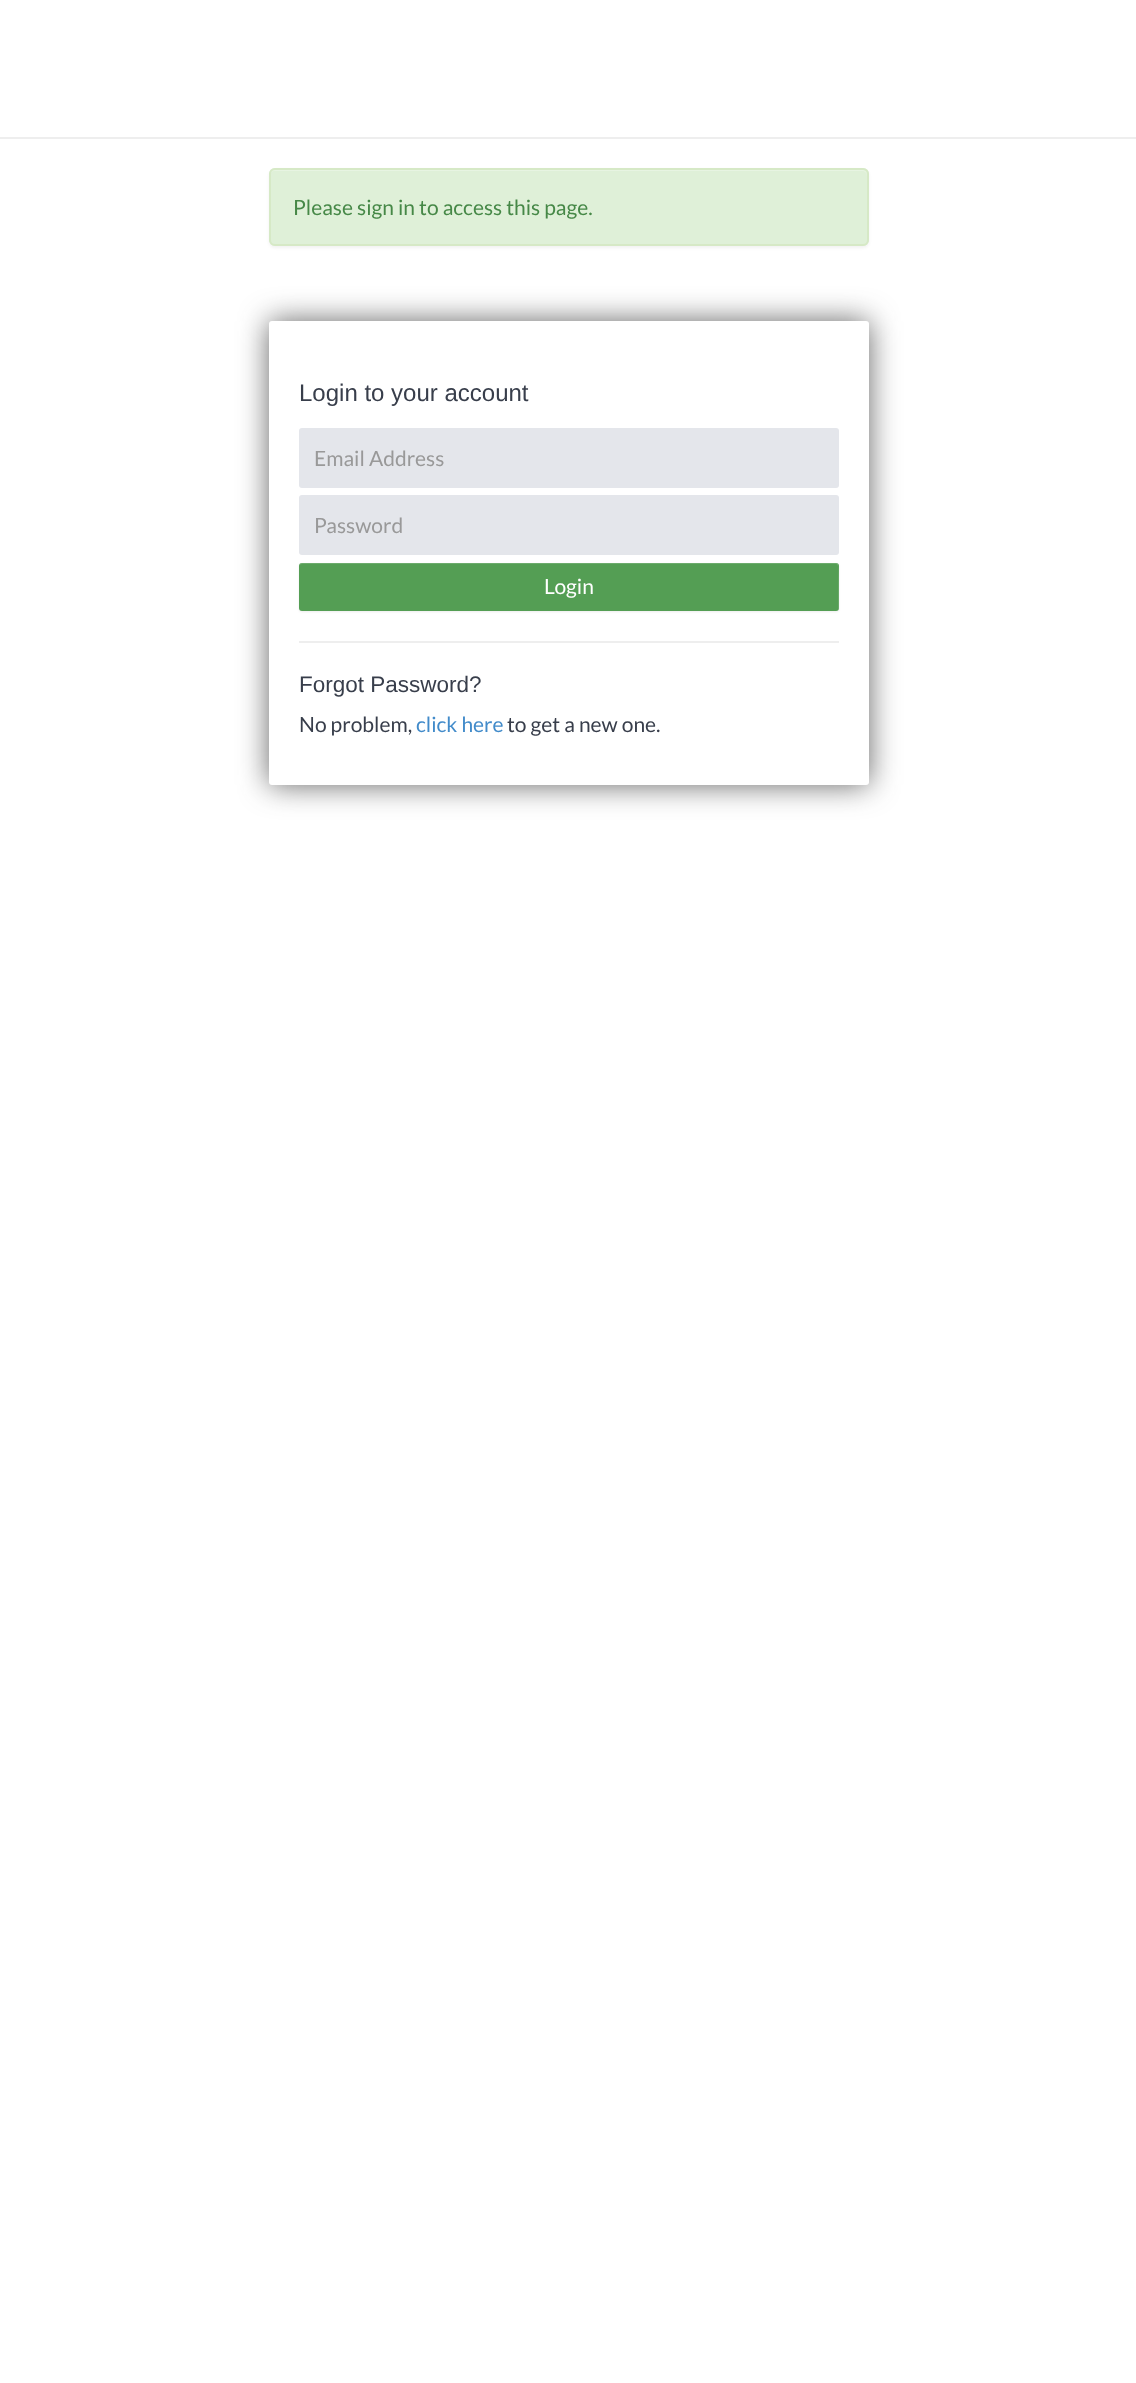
async function draw(canvas) {
  canvas.width = 1136;
  canvas.height = 2383;
  const ctx = canvas.getContext('2d');
  ctx.miterLimit = 4;
  ctx.fontKerning = 'normal';
  function label(s, x, y, font, color) {
    ctx.font = font;
    ctx.fillStyle = color;
    ctx.fillText(s, x, y);
  }
  function rect(x, y, w, h, color) {
    ctx.fillStyle = color;
    ctx.fillRect(x, y, w, h);
  }
  function roundedRect(x, y, w, h, r, color) {
    ctx.fillStyle = color;
    ctx.beginPath();
    ctx.roundRect(x, y, w, h, r);
    ctx.fill();
  }
  let path;

  rect(0, 0, 1136, 2383, '#fff');
  rect(0, 137, 1136, 2, '#eee');
  ctx.fillStyle = '#0000000d';
  ctx.filter = 'blur(1.5px)';
  ctx.beginPath();
  ctx.roundRect(269, 170, 600, 78, 6);
  ctx.fill();
  ctx.filter = 'none';
  roundedRect(269, 168, 600, 78, 6, '#dff0d8');
  ctx.fillStyle = '#e7f4e2';
  path = new Path2D('M274 171H862C865 171 867 173 867 176V175C867 172 865 170 862 170H275C272 170 270 172 270 175V176C270 173 272 171 274 171Z');
  ctx.fill(path);
  ctx.beginPath();
  ctx.roundRect(270, 169, 598, 76, 5);
  ctx.strokeStyle = '#d6e9c6';
  ctx.lineWidth = 2;
  ctx.stroke();
  label('Please sign in to access this page.', 293, 215, '21px Lato', '#468847');
  ctx.fillStyle = '#323232bf';
  ctx.filter = 'blur(15px)';
  ctx.beginPath();
  ctx.roundRect(269, 321, 600, 464, 3);
  ctx.fill();
  ctx.filter = 'none';
  roundedRect(269, 321, 600, 464, 3, '#fff');
  label('Login to your account', 299, 401, '24px Liberation Sans', '#383e4b');
  roundedRect(299, 428, 540, 60, 3, '#e4e6eb');
  label('Email Address', 314, 466, '21px Lato', '#999');
  roundedRect(299, 495, 540, 60, 3, '#e4e6eb');
  label('Password', 314, 533, '21px Lato', '#999');
  ctx.fillStyle = '#00000012';
  ctx.filter = 'blur(1px)';
  ctx.beginPath();
  ctx.roundRect(299, 564, 540, 48, 3);
  ctx.fill();
  ctx.filter = 'none';
  roundedRect(299, 563, 540, 48, 3, '#549e54');
  ctx.fillStyle = '#ffffff26';
  path = new Path2D('M302 564H836C837 564 838 565 838 567V610L839 608C839 605 839 566 838 564L836 563H302C301 563 300 564 299 565Z');
  ctx.fill(path);
  label('Login', 544, 594, '21px Lato', '#fff');
  rect(299, 641, 540, 2, '#eee');
  label('Forgot Password?', 299, 692, '22.5px Liberation Sans', '#383e4b');
  label('No problem,', 299, 732, '21px Lato', '#383e4b');
  label('click here', 416, 732, '21px Lato', '#428bca');
  label('to get a new one.', 507, 732, '21px Lato', '#383e4b');
}

draw(document.querySelector('canvas'));
